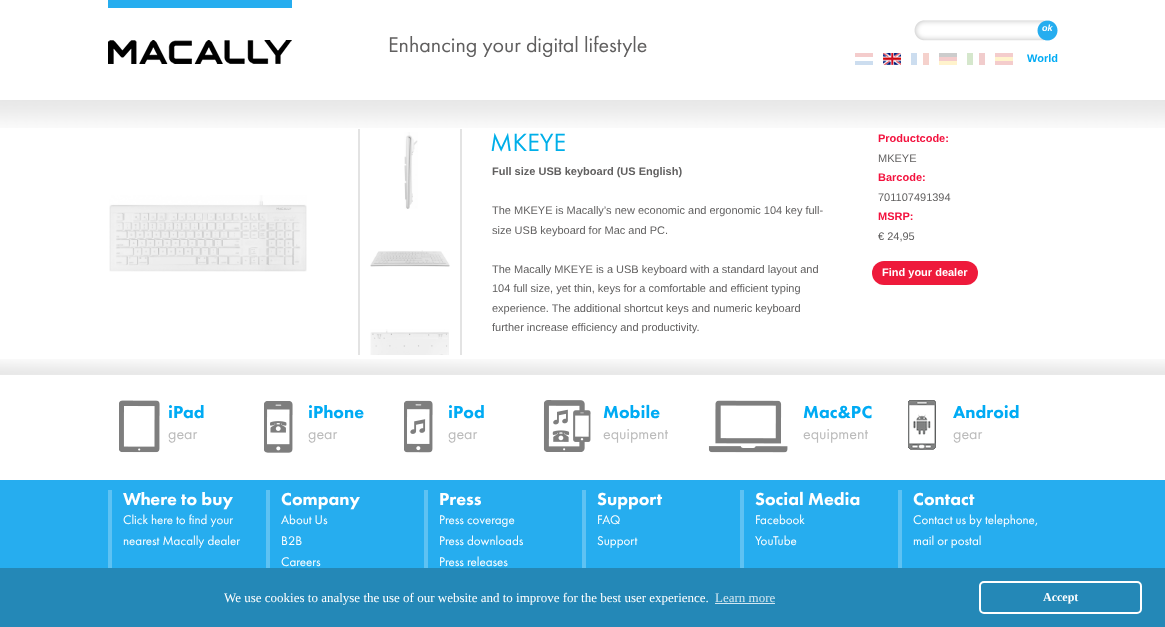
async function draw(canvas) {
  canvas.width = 1165;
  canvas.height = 627;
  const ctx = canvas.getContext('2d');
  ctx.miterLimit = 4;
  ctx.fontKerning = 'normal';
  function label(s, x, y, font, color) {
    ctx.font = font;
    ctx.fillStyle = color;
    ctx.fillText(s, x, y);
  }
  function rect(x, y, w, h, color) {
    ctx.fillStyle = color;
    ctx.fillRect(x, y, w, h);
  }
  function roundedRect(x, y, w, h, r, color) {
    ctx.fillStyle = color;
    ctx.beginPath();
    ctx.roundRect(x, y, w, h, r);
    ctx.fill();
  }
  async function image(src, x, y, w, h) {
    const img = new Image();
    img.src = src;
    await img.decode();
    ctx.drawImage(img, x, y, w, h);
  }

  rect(0, 0, 1165, 627, '#fff');
  await image('assets/img1.png', 0, 100, 1165, 28);
  await image('assets/img2.png', 108, 0, 184, 64);
  label('Enhancing your digital lifestyle', 388, 52, '22px Futura PT', '#605f5f');
  await image('assets/img3.png', 914, 20, 132, 21);
  await image('assets/img4.png', 1037, 20, 21, 21);
  label('ok', 1042, 31, 'italic bold 9px Liberation Sans', '#fff');
  await image('assets/img5.png', 855, 53, 18, 12);
  await image('assets/img6.png', 883, 53, 18, 12);
  await image('assets/img7.png', 911, 53, 18, 12);
  await image('assets/img8.png', 939, 53, 18, 12);
  await image('assets/img9.png', 967, 53, 18, 12);
  await image('assets/img10.png', 995, 53, 18, 12);
  label('World', 1027, 62, 'bold 11px Liberation Sans', '#00abf4');
  await image('assets/img11.png', 0, 359, 1165, 16);
  label('MKEYE', 490, 151, '26px Futura PT', '#00afe9');
  await image('assets/img12.png', 109, 195, 198, 77);
  rect(460, 129, 2, 226, '#e3e3e3');
  rect(358, 129, 2, 226, '#e3e3e3');
  await image('assets/img13.png', 404, 132, 14, 77);
  await image('assets/img14.png', 370, 250, 80, 17);
  await image('assets/img15.png', 370, 329, 79, 26);
  label('Full size USB keyboard (US English)', 492, 175, 'bold 11px Liberation Sans', '#605f5f');
  label('The MKEYE is Macally’s new economic and ergonomic 104 key full-', 492, 214, '11px Liberation Sans', '#605f5f');
  label('size USB keyboard for Mac and PC.', 492, 234, '11px Liberation Sans', '#605f5f');
  label('The Macally MKEYE is a USB keyboard with a standard layout and', 492, 273, '11px Liberation Sans', '#605f5f');
  label('104 full size, yet thin, keys for a comfortable and efficient typing', 492, 292, '11px Liberation Sans', '#605f5f');
  label('experience. The additional shortcut keys and numeric keyboard', 492, 312, '11px Liberation Sans', '#605f5f');
  label('further increase efficiency and productivity.', 492, 331, '11px Liberation Sans', '#605f5f');
  label('Productcode:', 878, 142, 'bold 11px Liberation Sans', '#f3123e');
  label('MKEYE', 878, 162, '11px Liberation Sans', '#605f5f');
  label('Barcode:', 878, 181, 'bold 11px Liberation Sans', '#f3123e');
  label('701107491394', 878, 201, '11px Liberation Sans', '#605f5f');
  label('MSRP:', 878, 220, 'bold 11px Liberation Sans', '#f3123e');
  label('€ 24,95', 878, 240, '11px Liberation Sans', '#605f5f');
  roundedRect(872, 261, 106, 24, 12, '#ee1a3b');
  label('Find your dealer', 882, 276, 'bold 11px Liberation Sans', '#fff');
  await image('assets/img16.png', 119, 400, 41, 53);
  label('iPad', 168, 418, '900 18px Futura PT', '#00abf4');
  label('gear', 168, 439, '16px Futura PT', '#bbb');
  await image('assets/img17.png', 264, 401, 29, 52);
  label('iPhone', 308, 418, '900 18px Futura PT', '#00abf4');
  label('gear', 308, 439, '16px Futura PT', '#bbb');
  await image('assets/img18.png', 404, 400, 29, 53);
  label('iPod', 448, 418, '900 18px Futura PT', '#00abf4');
  label('gear', 448, 439, '16px Futura PT', '#bbb');
  await image('assets/img19.png', 543, 400, 48, 52);
  label('Mobile', 603, 418, '900 18px Futura PT', '#00abf4');
  label('equipment', 603, 439, '16px Futura PT', '#bbb');
  await image('assets/img20.png', 708, 400, 80, 53);
  label('Mac&PC', 803, 418, '900 18px Futura PT', '#00abf4');
  label('equipment', 803, 439, '16px Futura PT', '#bbb');
  await image('assets/img21.png', 908, 400, 28, 50);
  label('Android', 953, 418, '900 18px Futura PT', '#00abf4');
  label('gear', 953, 439, '16px Futura PT', '#bbb');
  await image('assets/img22.png', 0, 480, 1165, 88);
  rect(108, 490, 4, 78, '#5ec2f3');
  label('Where to buy', 123, 505, '900 18px Futura PT', '#fff');
  label('Click here to find your', 123, 524, '13px Futura PT', '#fff');
  label('nearest Macally dealer', 123, 545, '13px Futura PT', '#fff');
  rect(266, 490, 4, 78, '#5ec2f3');
  label('Company', 281, 505, '900 18px Futura PT', '#fff');
  label('About Us', 281, 524, '13px Futura PT', '#fff');
  label('B2B', 281, 545, '13px Futura PT', '#fff');
  label('Careers', 281, 566, '13px Futura PT', '#fff');
  rect(424, 490, 4, 78, '#5ec2f3');
  label('Press', 439, 505, '900 18px Futura PT', '#fff');
  label('Press coverage', 439, 524, '13px Futura PT', '#fff');
  label('Press downloads', 439, 545, '13px Futura PT', '#fff');
  label('Press releases', 439, 566, '13px Futura PT', '#fff');
  rect(582, 490, 4, 78, '#5ec2f3');
  label('Support', 597, 505, '900 18px Futura PT', '#fff');
  label('FAQ', 597, 524, '13px Futura PT', '#fff');
  label('Support', 597, 545, '13px Futura PT', '#fff');
  rect(740, 490, 4, 78, '#5ec2f3');
  label('Social Media', 755, 505, '900 18px Futura PT', '#fff');
  label('Facebook', 755, 524, '13px Futura PT', '#fff');
  label('YouTube', 755, 545, '13px Futura PT', '#fff');
  rect(898, 490, 4, 78, '#5ec2f3');
  label('Contact', 913, 505, '900 18px Futura PT', '#fff');
  label('Contact us by telephone,', 913, 524, '13px Futura PT', '#fff');
  label('mail or postal', 913, 545, '13px Futura PT', '#fff');
  rect(0, 568, 1165, 59, '#2488b7');
  label('We use cookies to analyse the use of our website and to improve for the best user experience.', 224, 602, '13px Liberation Serif', '#fff');
  label('Learn more', 715, 602, '13px Liberation Serif', '#d3e7f1');
  rect(715, 603, 60, 1, '#d3e7f1');
  ctx.beginPath();
  ctx.roundRect(980, 582, 161, 31, 4);
  ctx.strokeStyle = '#fff';
  ctx.lineWidth = 2;
  ctx.stroke();
  label('Accept', 1043, 601, 'bold 12px Liberation Serif', '#fff');
}

draw(document.querySelector('canvas'));
